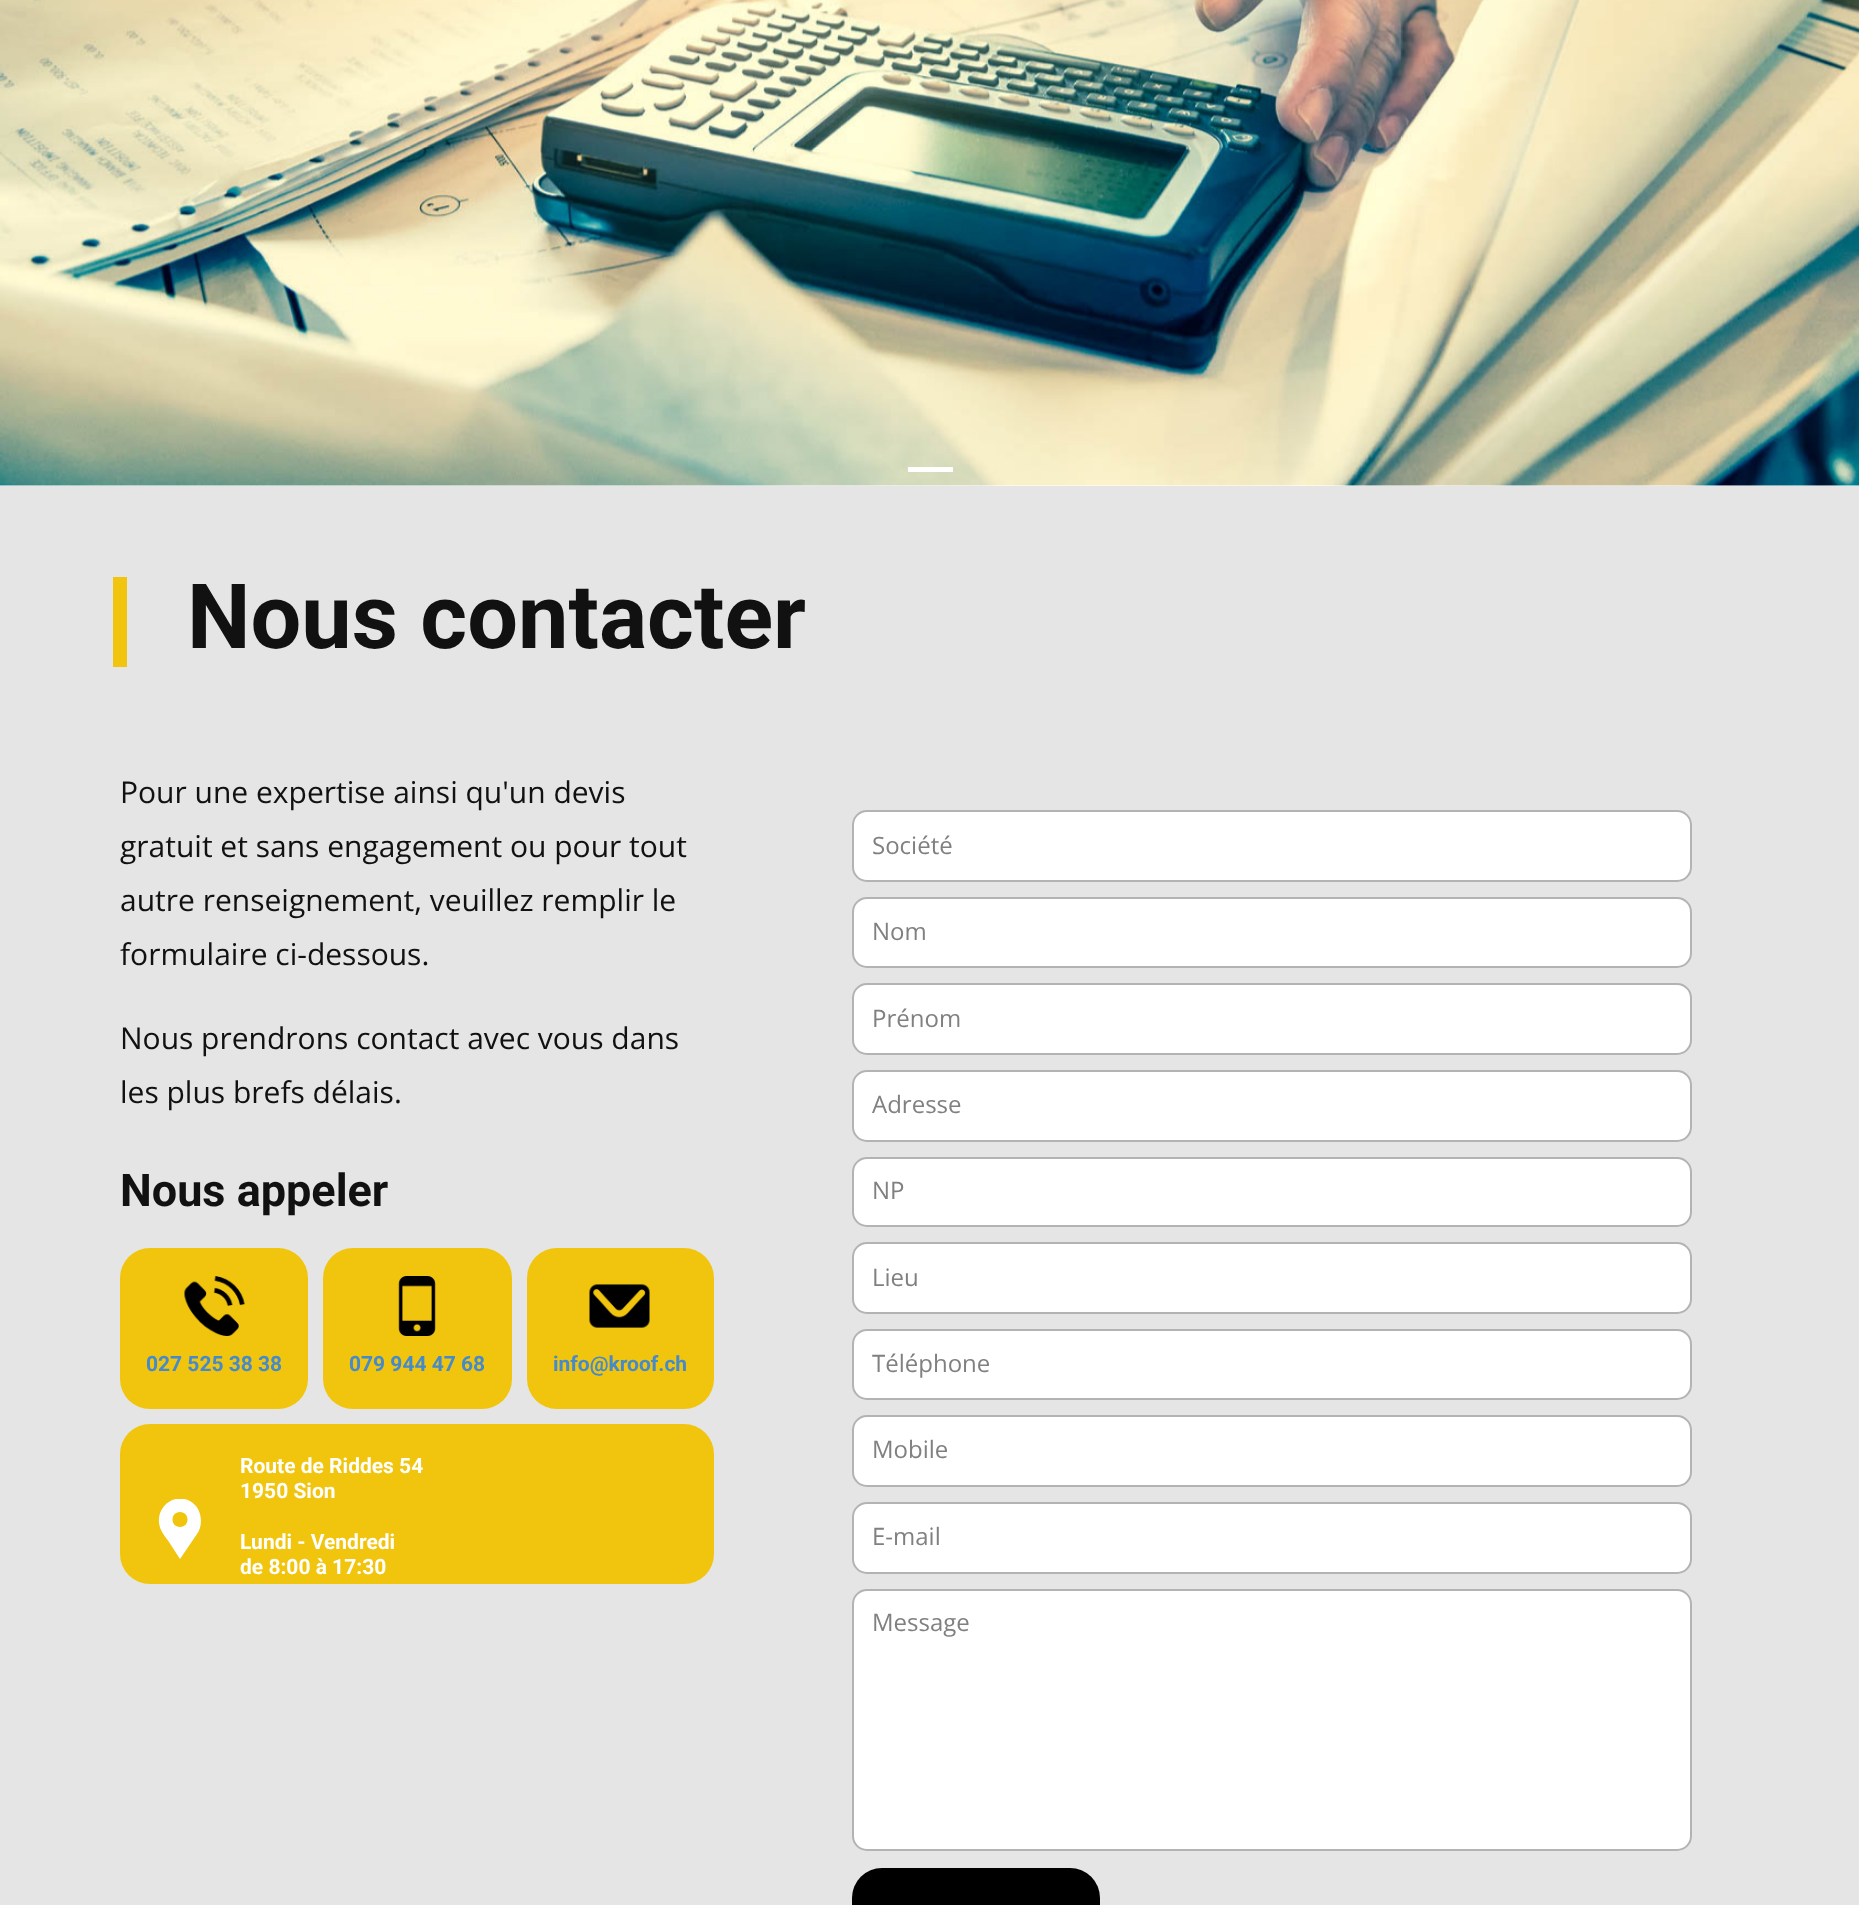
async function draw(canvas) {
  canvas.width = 1859;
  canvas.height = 1905;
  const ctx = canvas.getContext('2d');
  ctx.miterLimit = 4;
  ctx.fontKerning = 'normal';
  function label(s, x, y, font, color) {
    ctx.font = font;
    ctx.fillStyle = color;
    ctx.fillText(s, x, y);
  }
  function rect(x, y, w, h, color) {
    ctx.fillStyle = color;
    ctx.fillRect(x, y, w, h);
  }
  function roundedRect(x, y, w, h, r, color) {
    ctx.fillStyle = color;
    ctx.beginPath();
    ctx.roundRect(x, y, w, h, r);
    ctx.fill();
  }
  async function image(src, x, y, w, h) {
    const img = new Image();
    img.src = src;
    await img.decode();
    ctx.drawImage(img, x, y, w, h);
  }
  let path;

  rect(0, 0, 1859, 1905, '#fff');
  await image('assets/img1.png', 0, 0, 1859, 486);
  rect(908, 467, 45, 5, '#fff');
  rect(0, 486, 1859, 1419, '#e5e5e5');
  rect(113, 577, 14, 90, '#f1c50e');
  label('Nous contacter', 187, 648, 'bold 90px Roboto', '#111');
  label('Pour une expertise ainsi qu\'un devis', 120, 803, '30px Open Sans', '#111');
  label('gratuit et sans engagement ou pour tout', 120, 857, '30px Open Sans', '#111');
  label('autre renseignement, veuillez remplir le', 120, 911, '30px Open Sans', '#111');
  label('formulaire ci-dessous.', 120, 965, '30px Open Sans', '#111');
  label('Nous prendrons contact avec vous dans', 120, 1049, '30px Open Sans', '#111');
  label('les plus brefs délais.', 120, 1103, '30px Open Sans', '#111');
  label('Nous appeler', 120, 1206, 'bold 45px Roboto', '#111');
  roundedRect(120, 1248, 188, 161, 30, '#f1c50e');
  await image('assets/img2.png', 184, 1276, 61, 60);
  label('027 525 38 38', 146, 1371, 'bold 21px Roboto', '#478ac9');
  roundedRect(323, 1248, 189, 161, 30, '#f1c50e');
  await image('assets/img3.png', 398, 1276, 38, 60);
  label('079 944 47 68', 349, 1371, 'bold 21px Roboto', '#478ac9');
  roundedRect(527, 1248, 187, 161, 30, '#f1c50e');
  await image('assets/img4.png', 589, 1284, 61, 44);
  label('info@kroof.ch', 553, 1371, 'bold 21px Roboto', '#478ac9');
  roundedRect(120, 1424, 594, 160, 30, '#f1c50e');
  ctx.save();
  ctx.beginPath();
  ctx.rect(150, 1499, 60, 60);
  ctx.clip();
  ctx.fillStyle = '#fff';
  path = new Path2D('M195 1505C180 1490 157 1503 159 1523C160 1531 165 1536 169 1542L180 1559L197 1534C203 1526 202 1512 195 1505ZM180 1527C170 1527 170 1512 180 1512C190 1512 190 1527 180 1527Z');
  ctx.fill(path);
  ctx.restore();
  label('Route de Riddes 54', 240, 1473, 'bold 21px Roboto', '#fff');
  label('1950 Sion', 240, 1498, 'bold 21px Roboto', '#fff');
  label('Lundi - Vendredi', 240, 1549, 'bold 21px Roboto', '#fff');
  label('de 8:00 à 17:30', 240, 1574, 'bold 21px Roboto', '#fff');
  ctx.beginPath();
  ctx.roundRect(853, 811, 838, 70, 14);
  ctx.fill();
  ctx.strokeStyle = '#b3b3b3';
  ctx.lineWidth = 2;
  ctx.stroke();
  label('Société', 872, 854, '24px Open Sans', '#808080');
  ctx.fillStyle = '#fff';
  ctx.beginPath();
  ctx.roundRect(853, 898, 838, 69, 14);
  ctx.fill();
  ctx.stroke();
  label('Nom', 872, 940, '24px Open Sans', '#808080');
  ctx.fillStyle = '#fff';
  ctx.beginPath();
  ctx.roundRect(853, 984, 838, 70, 14);
  ctx.fill();
  ctx.stroke();
  label('Prénom', 872, 1027, '24px Open Sans', '#808080');
  ctx.fillStyle = '#fff';
  ctx.beginPath();
  ctx.roundRect(853, 1071, 838, 70, 14);
  ctx.fill();
  ctx.stroke();
  label('Adresse', 872, 1113, '24px Open Sans', '#808080');
  ctx.fillStyle = '#fff';
  ctx.beginPath();
  ctx.roundRect(853, 1158, 838, 68, 14);
  ctx.fill();
  ctx.stroke();
  label('NP', 872, 1199, '24px Open Sans', '#808080');
  ctx.fillStyle = '#fff';
  ctx.beginPath();
  ctx.roundRect(853, 1243, 838, 70, 14);
  ctx.fill();
  ctx.stroke();
  label('Lieu', 872, 1286, '24px Open Sans', '#808080');
  ctx.fillStyle = '#fff';
  ctx.beginPath();
  ctx.roundRect(853, 1330, 838, 69, 14);
  ctx.fill();
  ctx.stroke();
  label('Téléphone', 872, 1372, '24px Open Sans', '#808080');
  ctx.fillStyle = '#fff';
  ctx.beginPath();
  ctx.roundRect(853, 1416, 838, 70, 14);
  ctx.fill();
  ctx.stroke();
  label('Mobile', 872, 1458, '24px Open Sans', '#808080');
  ctx.fillStyle = '#fff';
  ctx.beginPath();
  ctx.roundRect(853, 1503, 838, 70, 14);
  ctx.fill();
  ctx.stroke();
  label('E-mail', 872, 1545, '24px Open Sans', '#808080');
  ctx.fillStyle = '#fff';
  ctx.beginPath();
  ctx.roundRect(853, 1590, 838, 260, 14);
  ctx.fill();
  ctx.stroke();
  label('Message', 872, 1631, '24px Open Sans', '#808080');
  roundedRect(852, 1868, 248, 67, 30, '#000');
}

draw(document.querySelector('canvas'));
